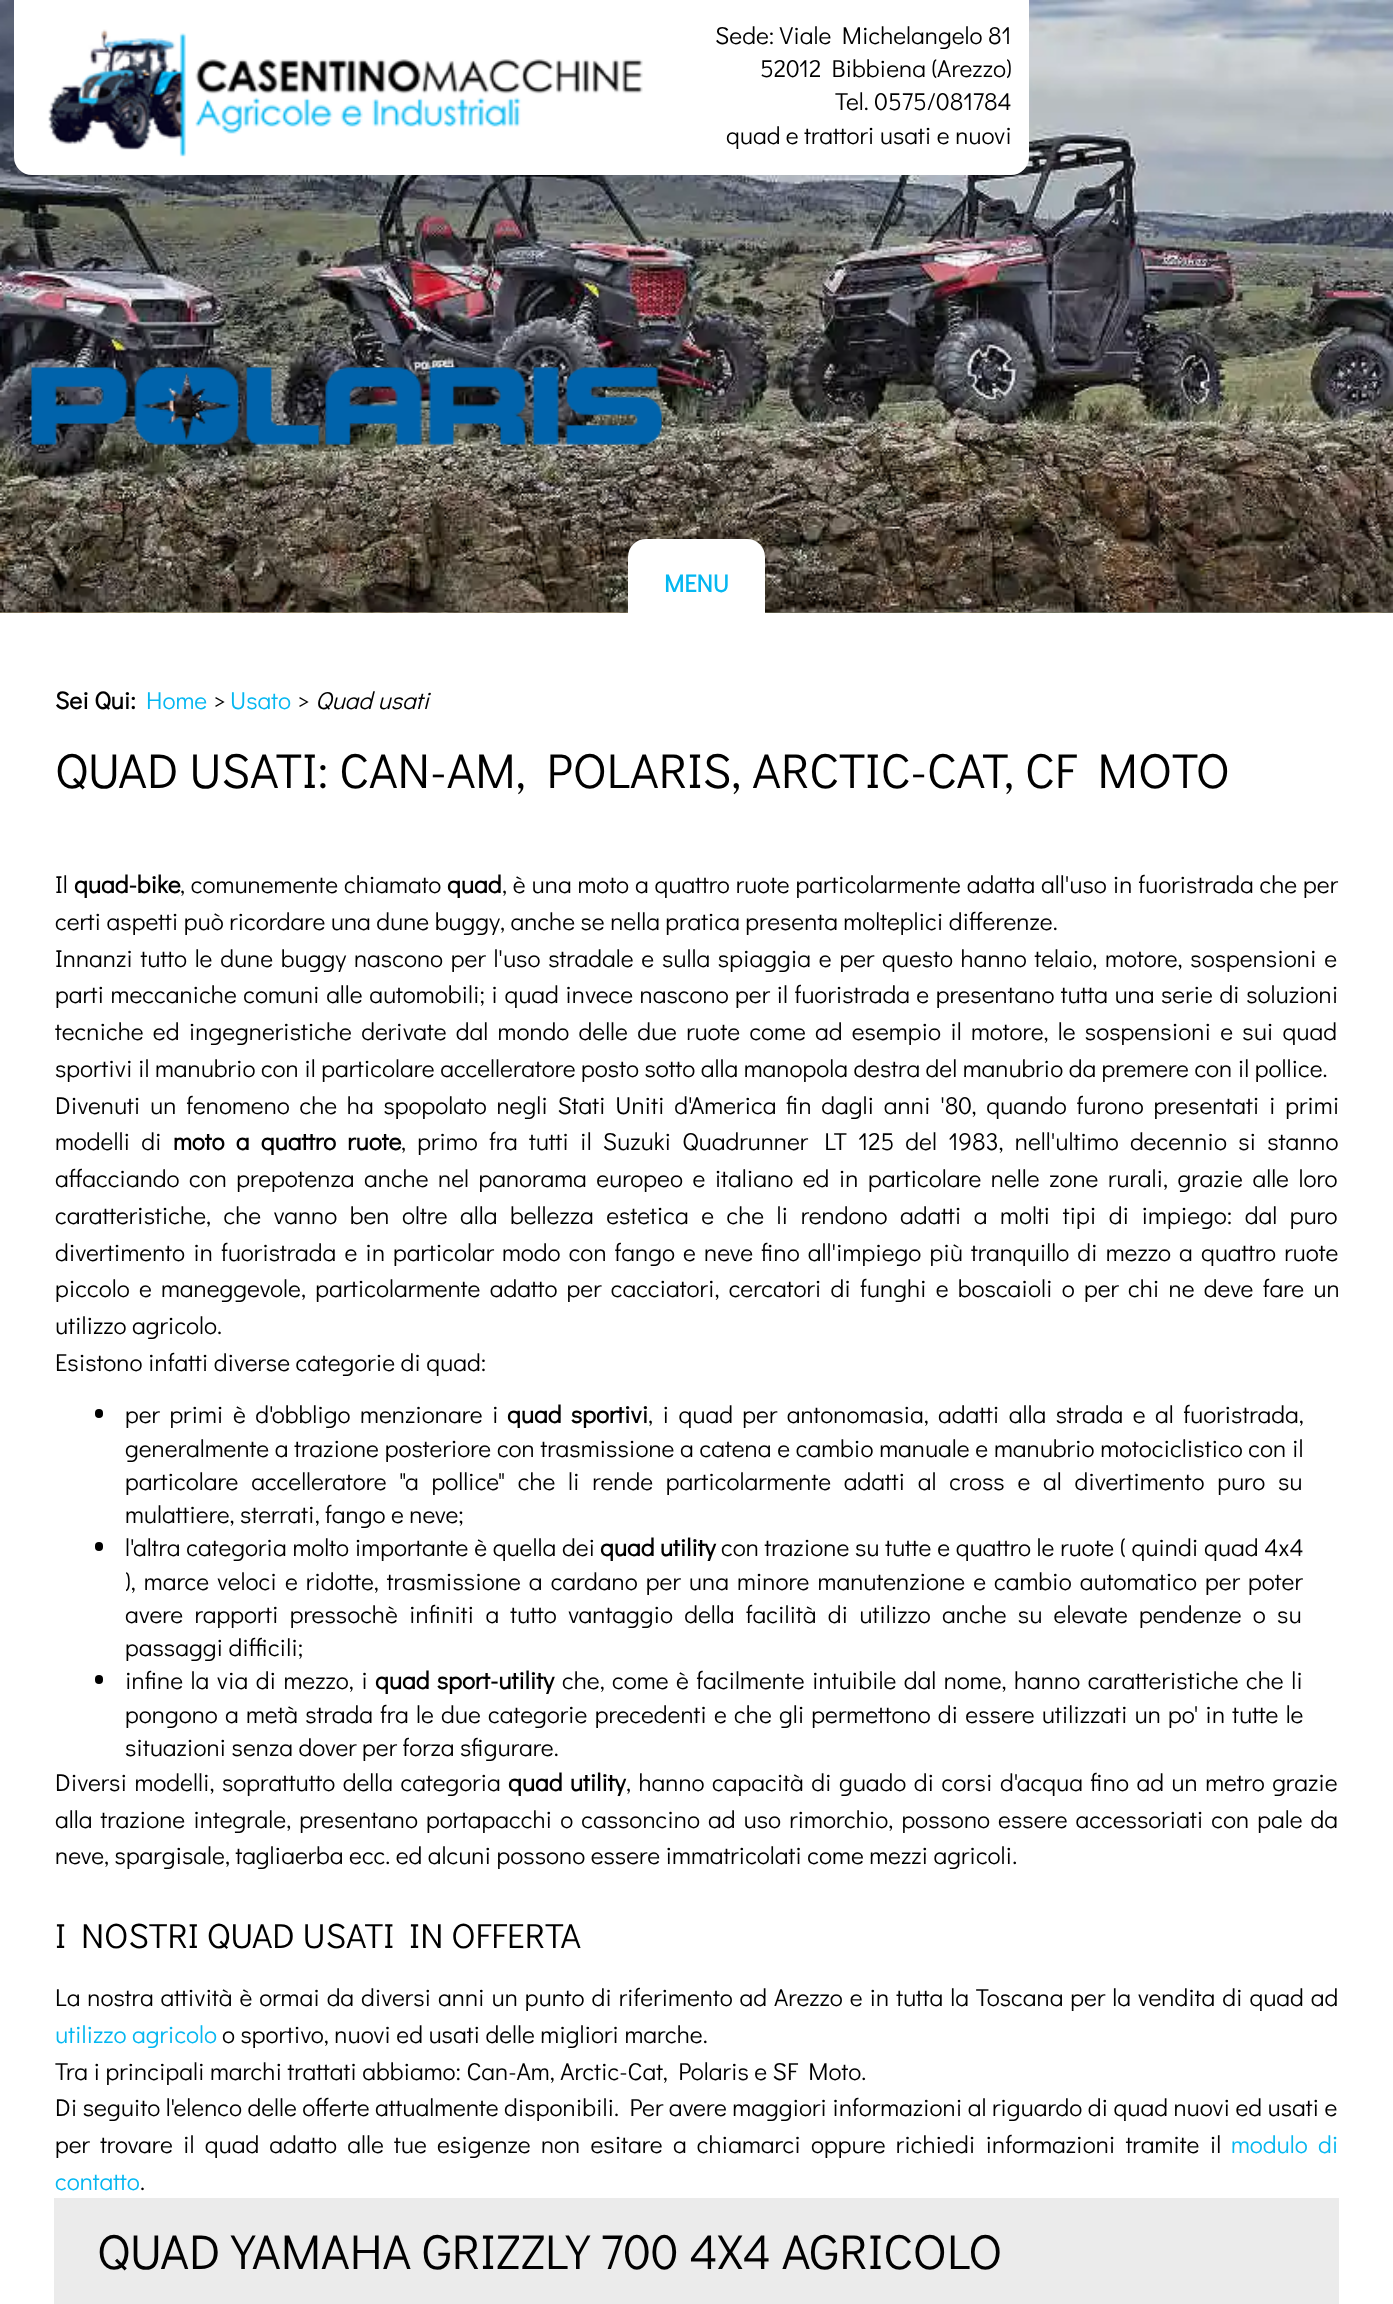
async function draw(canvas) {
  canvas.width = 1393;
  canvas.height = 2304;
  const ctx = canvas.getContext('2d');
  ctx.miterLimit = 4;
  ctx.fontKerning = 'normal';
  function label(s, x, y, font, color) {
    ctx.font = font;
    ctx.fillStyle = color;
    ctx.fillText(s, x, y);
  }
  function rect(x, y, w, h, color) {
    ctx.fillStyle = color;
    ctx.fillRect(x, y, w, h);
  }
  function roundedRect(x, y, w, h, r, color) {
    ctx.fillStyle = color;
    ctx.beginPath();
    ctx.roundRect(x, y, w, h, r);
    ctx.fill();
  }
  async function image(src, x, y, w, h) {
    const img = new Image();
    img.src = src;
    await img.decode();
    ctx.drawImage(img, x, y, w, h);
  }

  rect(0, 0, 1393, 2304, '#fff');
  await image('assets/img1.png', 0, 612, 1393, 1);
  await image('assets/img4.png', 0, 612, 1393, 1);
  await image('assets/img5.png', 0, 612, 1393, 1);
  await image('assets/img6.png', 0, 612, 1393, 1);
  await image('assets/img7.png', 0, 612, 1393, 1);
  await image('assets/img2.png', 0, 0, 1393, 613);
  await image('assets/img3.png', 31, 367, 631, 78);
  ctx.beginPath();
  ctx.roundRect(14, 0, 1015, 175, [0, 0, 18, 18]);
  ctx.fill();
  await image('assets/img8.png', 48, 29, 595, 128);
  label('Sede: Viale Michelangelo 81', 715, 44, '24.5px Didact Gothic', '#000');
  label('52012 Bibbiena (Arezzo)', 760, 77, '24.5px Didact Gothic', '#000');
  label('Tel. 0575/081784', 835, 110, '24.5px Didact Gothic', '#000');
  label('quad e trattori usati e nuovi', 726, 144, '24.5px Didact Gothic', '#000');
  ctx.fillStyle = '#fff';
  ctx.beginPath();
  ctx.roundRect(628, 539, 137, 86, [18, 18, 0, 0]);
  ctx.fill();
  label('MENU', 664, 592, 'bold 24.5px Didact Gothic', '#05b7f1');
  label('Sei Qui:', 55, 709, 'bold 24.5px Didact Gothic', '#000');
  label('Home', 146, 709, '24.5px Didact Gothic', '#05b7f1');
  label('>', 213, 709, '24.5px Didact Gothic', '#000');
  label('Usato', 230, 709, '24.5px Didact Gothic', '#05b7f1');
  label('>', 297, 709, '24.5px Didact Gothic', '#000');
  label('Quad usati', 315, 709, 'italic 24.5px Didact Gothic', '#000');
  label('QUAD USATI: CAN-AM, POLARIS, ARCTIC-CAT, CF MOTO', 55, 788, '49px Didact Gothic', '#000');
  label('Il', 55, 893, '24.5px Didact Gothic', '#000');
  label('quad-bike', 74, 893, 'bold 24.5px Didact Gothic', '#000');
  ctx.wordSpacing = '0.4px';
  label(', comunemente chiamato', 180, 893, '24.5px Didact Gothic', '#000');
  ctx.wordSpacing = '0px';
  label('quad', 447, 893, 'bold 24.5px Didact Gothic', '#000');
  ctx.wordSpacing = '0.4px';
  label(', è una moto a quattro ruote particolarmente adatta all\'uso in fuoristrada che per', 502, 893, '24.5px Didact Gothic', '#000');
  ctx.wordSpacing = '0px';
  label('certi aspetti può ricordare una dune buggy, anche se nella pratica presenta molteplici differenze.', 55, 930, '24.5px Didact Gothic', '#000');
  ctx.wordSpacing = '2.25px';
  label('Innanzi tutto le dune buggy nascono per l\'uso stradale e sulla spiaggia e per questo hanno telaio, motore, sospensioni e', 55, 967, '24.5px Didact Gothic', '#000');
  ctx.wordSpacing = '1px';
  label('parti meccaniche comuni alle automobili; i quad invece nascono per il fuoristrada e presentano tutta una serie di soluzioni', 55, 1003, '24.5px Didact Gothic', '#000');
  ctx.wordSpacing = '3.75px';
  label('tecniche ed ingegneristiche derivate dal mondo delle due ruote come ad esempio il motore, le sospensioni e sui quad', 55, 1040, '24.5px Didact Gothic', '#000');
  ctx.wordSpacing = '0px';
  label('sportivi il manubrio con il particolare accelleratore posto sotto alla manopola destra del manubrio da premere con il pollice.', 55, 1077, '24.5px Didact Gothic', '#000');
  ctx.wordSpacing = '4.25px';
  label('Divenuti un fenomeno che ha spopolato negli Stati Uniti d\'America fin dagli anni \'80, quando furono presentati i primi', 55, 1114, '24.5px Didact Gothic', '#000');
  ctx.wordSpacing = '5.75px';
  label('modelli di', 55, 1150, '24.5px Didact Gothic', '#000');
  label('moto a quattro ruote', 173, 1150, 'bold 24.5px Didact Gothic', '#000');
  label(', primo fra tutti il Suzuki Quadrunner LT 125 del 1983, nell\'ultimo decennio si stanno', 401, 1150, '24.5px Didact Gothic', '#000');
  ctx.wordSpacing = '4px';
  label('affacciando con prepotenza anche nel panorama europeo e italiano ed in particolare nelle zone rurali, grazie alle loro', 55, 1187, '24.5px Didact Gothic', '#000');
  ctx.wordSpacing = '7px';
  label('caratteristiche, che vanno ben oltre alla bellezza estetica e che li rendono adatti a molti tipi di impiego: dal puro', 55, 1224, '24.5px Didact Gothic', '#000');
  ctx.wordSpacing = '2.6px';
  label('divertimento in fuoristrada e in particolar modo con fango e neve fino all\'impiego più tranquillo di mezzo a quattro ruote', 55, 1261, '24.5px Didact Gothic', '#000');
  ctx.wordSpacing = '3.75px';
  label('piccolo e maneggevole, particolarmente adatto per cacciatori, cercatori di funghi e boscaioli o per chi ne deve fare un', 55, 1297, '24.5px Didact Gothic', '#000');
  ctx.wordSpacing = '0px';
  label('utilizzo agricolo.', 55, 1334, '24.5px Didact Gothic', '#000');
  label('Esistono infatti diverse categorie di quad:', 55, 1371, '24.5px Didact Gothic', '#000');
  roundedRect(95, 1409, 8, 9, 4, '#000');
  ctx.wordSpacing = '4px';
  label('per primi è d\'obbligo menzionare i', 125, 1423, '24.5px Didact Gothic', '#000');
  label('quad sportivi', 507, 1423, 'bold 24.5px Didact Gothic', '#000');
  label(', i quad per antonomasia,', 648, 1423, '24.5px Didact Gothic', '#000');
  label('adatti alla strada e al fuoristrada,', 938, 1423, '24.5px Didact Gothic', '#000');
  ctx.wordSpacing = '0.25px';
  label('generalmente a trazione posteriore con trasmissione a catena e cambio manuale e manubrio motociclistico con il', 125, 1457, '24.5px Didact Gothic', '#000');
  ctx.wordSpacing = '7.25px';
  label('particolare accelleratore "a pollice" che li rende particolarmente adatti al cross e al divertimento puro su', 125, 1490, '24.5px Didact Gothic', '#000');
  ctx.wordSpacing = '0px';
  label('mulattiere, sterrati, fango e neve;', 125, 1523, '24.5px Didact Gothic', '#000');
  roundedRect(95, 1542, 8, 9, 4, '#000');
  ctx.wordSpacing = '0.25px';
  label('l\'altra categoria molto importante è quella dei', 125, 1556, '24.5px Didact Gothic', '#000');
  ctx.wordSpacing = '0px';
  label('quad utility', 600, 1556, 'bold 24.5px Didact Gothic', '#000');
  ctx.wordSpacing = '0.25px';
  label('con trazione su tutte e quattro le ruote ( quindi quad 4x4', 721, 1556, '24.5px Didact Gothic', '#000');
  ctx.wordSpacing = '2.6px';
  label('), marce veloci e ridotte, trasmissione a cardano per una minore manutenzione e cambio automatico per poter', 125, 1590, '24.5px Didact Gothic', '#000');
  ctx.wordSpacing = '5.75px';
  label('avere rapporti pressochè infiniti a tutto vantaggio della facilità di utilizzo anche su elevate pendenze o su', 125, 1623, '24.5px Didact Gothic', '#000');
  ctx.wordSpacing = '0px';
  label('passaggi difficili;', 125, 1656, '24.5px Didact Gothic', '#000');
  roundedRect(95, 1675, 8, 9, 4, '#000');
  ctx.wordSpacing = '2px';
  label('infine la via di mezzo, i', 125, 1689, '24.5px Didact Gothic', '#000');
  label('quad sport-utility', 375, 1689, 'bold 24.5px Didact Gothic', '#000');
  label('che, come è facilmente intuibile dal nome, hanno caratteristiche che li', 562, 1689, '24.5px Didact Gothic', '#000');
  ctx.wordSpacing = '1.7px';
  label('pongono a metà strada fra le due categorie precedenti e che gli permettono di essere utilizzati un po\' in tutte le', 125, 1723, '24.5px Didact Gothic', '#000');
  ctx.wordSpacing = '0px';
  label('situazioni senza dover per forza sfigurare.', 125, 1756, '24.5px Didact Gothic', '#000');
  ctx.wordSpacing = '2px';
  label('Diversi modelli, soprattutto della categoria', 55, 1791, '24.5px Didact Gothic', '#000');
  label('quad utility', 508, 1791, 'bold 24.5px Didact Gothic', '#000');
  label(', hanno capacità di guado di corsi d\'acqua fino ad un metro grazie', 626, 1791, '24.5px Didact Gothic', '#000');
  ctx.wordSpacing = '2.6px';
  label('alla trazione integrale, presentano portapacchi o cassoncino ad uso rimorchio, possono essere accessoriati con pale da', 55, 1828, '24.5px Didact Gothic', '#000');
  ctx.wordSpacing = '0px';
  label('neve, spargisale, tagliaerba ecc. ed alcuni possono essere immatricolati come mezzi agricoli.', 55, 1864, '24.5px Didact Gothic', '#000');
  label('I NOSTRI QUAD USATI IN OFFERTA', 55, 1948, '35px Didact Gothic', '#000');
  ctx.wordSpacing = '1.45px';
  label('La nostra attività è ormai da diversi anni un punto di riferimento ad Arezzo e in tutta la Toscana per la vendita di quad ad', 55, 2006, '24.5px Didact Gothic', '#000');
  ctx.wordSpacing = '0px';
  label('utilizzo agricolo', 55, 2043, '24.5px Didact Gothic', '#05b7f1');
  label('o sportivo, nuovi ed usati delle migliori marche.', 222, 2043, '24.5px Didact Gothic', '#000');
  label('Tra i principali marchi trattati abbiamo: Can-Am, Arctic-Cat, Polaris e SF Moto.', 55, 2080, '24.5px Didact Gothic', '#000');
  label('Di seguito l\'elenco delle offerte attualmente disponibili. Per avere maggiori informazioni al riguardo di quad nuovi ed usati e', 55, 2116, '24.5px Didact Gothic', '#000');
  ctx.wordSpacing = '4.75px';
  label('per trovare il quad adatto alle tue esigenze non esitare a chiamarci oppure richiedi informazioni tramite il', 55, 2153, '24.5px Didact Gothic', '#000');
  label('modulo di', 1231, 2153, '24.5px Didact Gothic', '#05b7f1');
  ctx.wordSpacing = '0px';
  label('contatto', 55, 2190, '24.5px Didact Gothic', '#05b7f1');
  label('.', 140, 2190, '24.5px Didact Gothic', '#000');
  rect(54, 2198, 1285, 106, '#ebebeb');
  label('QUAD YAMAHA GRIZZLY 700 4X4 AGRICOLO', 97, 2269, '49px Didact Gothic', '#000');
}

draw(document.querySelector('canvas'));
